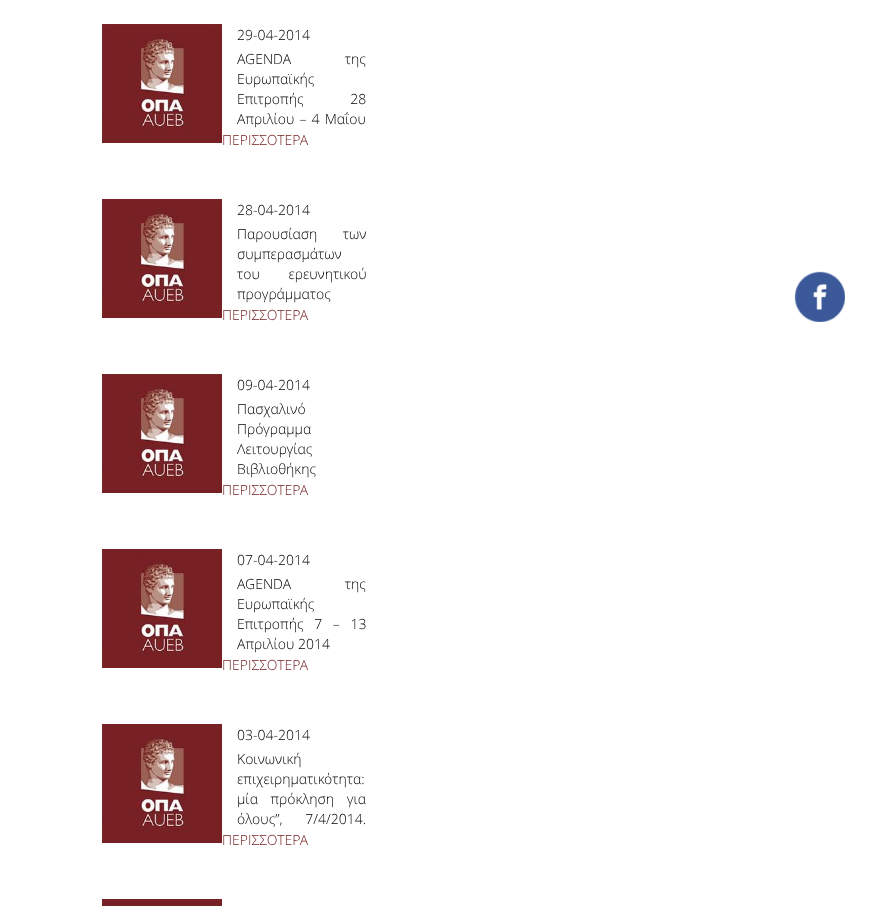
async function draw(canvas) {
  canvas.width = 871;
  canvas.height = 906;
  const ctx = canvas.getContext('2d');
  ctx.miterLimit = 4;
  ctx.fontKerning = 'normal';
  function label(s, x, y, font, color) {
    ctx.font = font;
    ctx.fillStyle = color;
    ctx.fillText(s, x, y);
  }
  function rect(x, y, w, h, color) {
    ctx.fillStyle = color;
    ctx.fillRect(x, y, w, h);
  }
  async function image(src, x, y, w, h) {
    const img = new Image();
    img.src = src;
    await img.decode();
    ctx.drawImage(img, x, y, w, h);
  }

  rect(0, 0, 871, 906, '#fff');
  await image('assets/img1.png', 102, 24, 120, 119);
  label('29-04-2014', 237, 40, '300 14px Open Sans', '#000');
  ctx.wordSpacing = '50px';
  label('AGENDA της', 237, 64, '300 14px Open Sans', '#000');
  ctx.wordSpacing = '0px';
  label('Ευρωπαϊκής', 237, 84, '300 14px Open Sans', '#000');
  ctx.wordSpacing = '43px';
  label('Επιτροπής 28', 237, 104, '300 14px Open Sans', '#000');
  ctx.wordSpacing = '1.5px';
  label('Απριλίου – 4 Μαΐου', 237, 124, '300 14px Open Sans', '#000');
  ctx.wordSpacing = '0px';
  label('ΠΕΡΙΣΣΟΤΕΡΑ', 222, 145, '300 14px Open Sans', '#752123');
  await image('assets/img1.png', 102, 199, 120, 119);
  label('28-04-2014', 237, 215, '300 14px Open Sans', '#000');
  ctx.wordSpacing = '22px';
  label('Παρουσίαση των', 237, 239, '300 14px Open Sans', '#000');
  ctx.wordSpacing = '0px';
  label('συμπερασμάτων', 237, 259, '300 14px Open Sans', '#000');
  ctx.wordSpacing = '25px';
  label('του ερευνητικού', 237, 279, '300 14px Open Sans', '#000');
  ctx.wordSpacing = '0px';
  label('προγράμματος', 237, 299, '300 14px Open Sans', '#000');
  label('ΠΕΡΙΣΣΟΤΕΡΑ', 222, 320, '300 14px Open Sans', '#752123');
  await image('assets/img1.png', 102, 374, 120, 119);
  label('09-04-2014', 237, 390, '300 14px Open Sans', '#000');
  label('Πασχαλινό', 237, 414, '300 14px Open Sans', '#000');
  label('Πρόγραμμα', 237, 434, '300 14px Open Sans', '#000');
  label('Λειτουργίας', 237, 454, '300 14px Open Sans', '#000');
  label('Βιβλιοθήκης', 237, 474, '300 14px Open Sans', '#000');
  label('ΠΕΡΙΣΣΟΤΕΡΑ', 222, 495, '300 14px Open Sans', '#752123');
  await image('assets/img1.png', 102, 549, 120, 119);
  label('07-04-2014', 237, 565, '300 14px Open Sans', '#000');
  ctx.wordSpacing = '50px';
  label('AGENDA της', 237, 589, '300 14px Open Sans', '#000');
  ctx.wordSpacing = '0px';
  label('Ευρωπαϊκής', 237, 609, '300 14px Open Sans', '#000');
  ctx.wordSpacing = '7px';
  label('Επιτροπής 7 – 13', 237, 629, '300 14px Open Sans', '#000');
  ctx.wordSpacing = '0px';
  label('Απριλίου 2014', 237, 649, '300 14px Open Sans', '#000');
  label('ΠΕΡΙΣΣΟΤΕΡΑ', 222, 670, '300 14px Open Sans', '#752123');
  await image('assets/img1.png', 102, 724, 120, 119);
  label('03-04-2014', 237, 740, '300 14px Open Sans', '#000');
  label('Κοινωνική', 237, 764, '300 14px Open Sans', '#000');
  label('επιχειρηματικότητα:', 237, 784, '300 14px Open Sans', '#000');
  ctx.wordSpacing = '9px';
  label('μία πρόκληση για', 237, 804, '300 14px Open Sans', '#000');
  ctx.wordSpacing = '19px';
  label('όλους”, 7/4/2014.', 237, 824, '300 14px Open Sans', '#000');
  ctx.wordSpacing = '0px';
  label('ΠΕΡΙΣΣΟΤΕΡΑ', 222, 845, '300 14px Open Sans', '#752123');
  await image('assets/img2.png', 102, 899, 120, 7);
  await image('assets/img3.png', 794, 271, 51, 51);
}

draw(document.querySelector('canvas'));
